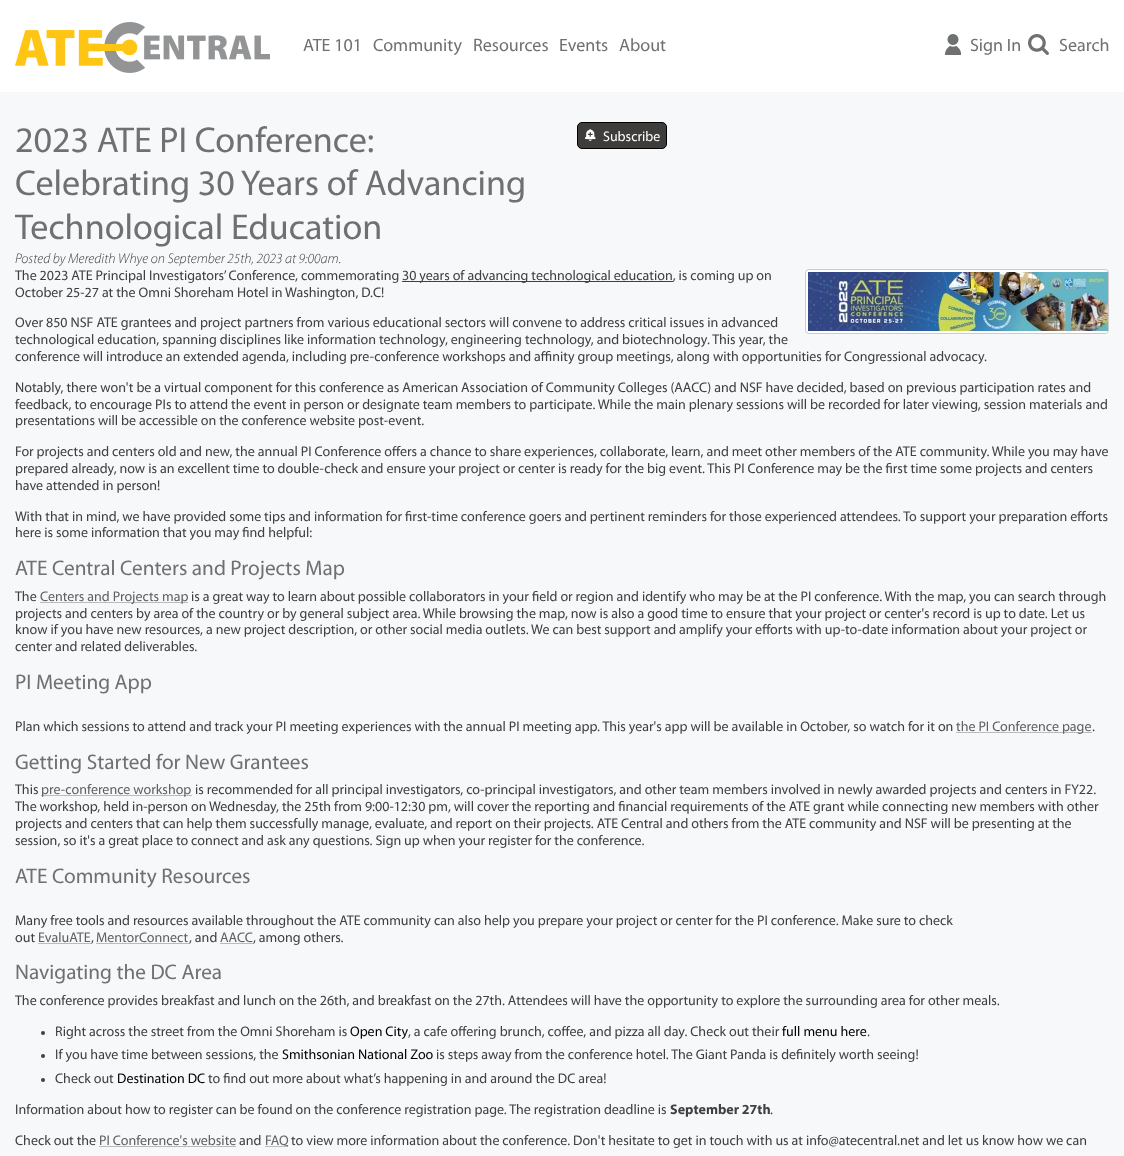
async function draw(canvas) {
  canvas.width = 1124;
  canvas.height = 1156;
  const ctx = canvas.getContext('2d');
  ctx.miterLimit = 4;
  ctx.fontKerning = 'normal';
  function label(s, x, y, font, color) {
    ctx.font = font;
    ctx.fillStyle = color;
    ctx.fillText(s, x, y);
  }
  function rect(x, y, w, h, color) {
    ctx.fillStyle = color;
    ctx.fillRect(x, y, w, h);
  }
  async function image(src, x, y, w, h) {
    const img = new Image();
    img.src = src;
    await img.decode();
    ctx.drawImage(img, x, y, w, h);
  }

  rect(0, 0, 1124, 1156, '#f7f8fa');
  rect(0, 0, 1124, 92, '#fff');
  await image('assets/img1.png', 15, 22, 255, 51);
  label('ATE 101', 303, 51, '18px Myriad', '#6e7072');
  label('Community', 373, 51, '18px Myriad', '#6e7072');
  label('Resources', 473, 51, '18px Myriad', '#6e7072');
  label('Events', 559, 51, '18px Myriad', '#6e7072');
  label('About', 619, 51, '18px Myriad', '#6e7072');
  await image('assets/img2.png', 945, 34, 16, 21);
  label('Sign In', 970, 51, '18px Myriad', '#6e7072');
  await image('assets/img3.png', 1028, 34, 21, 21);
  label('Search', 1059, 51, '18px Myriad', '#6e7072');
  label('2023 ATE PI Conference:', 15, 152, '36.1px Myriad', '#6e7072');
  label('Celebrating 30 Years of Advancing', 15, 195, '36.1px Myriad', '#6e7072');
  label('Technological Education', 15, 239, '36.1px Myriad', '#6e7072');
  ctx.fillStyle = '#3f3d3b';
  ctx.beginPath();
  ctx.roundRect(577.5, 122.5, 89, 26, 4.5);
  ctx.fill();
  ctx.strokeStyle = '#000';
  ctx.stroke();
  await image('assets/img4.png', 585, 129, 11, 12);
  label('Subscribe', 603, 141, '14px Myriad', '#fff');
  label('Posted by Meredith Whye on September 25th, 2023 at 9:00am.', 15, 263, 'italic 300 14px Myriad', '#3e4042');
  label('The 2023 ATE Principal Investigators’ Conference, commemorating', 15, 280, '14px Myriad', '#3e4042');
  rect(402, 281, 271, 1, '#3e4042');
  label('30 years of advancing technological education, is coming up on', 402, 280, '14px Myriad', '#3e4042');
  label('October 25-27 at the Omni Shoreham Hotel in Washington, D.C!', 15, 297, '14px Myriad', '#3e4042');
  ctx.fillStyle = '#fff';
  ctx.beginPath();
  ctx.roundRect(805.5, 269.5, 303, 64, 3.5);
  ctx.fill();
  ctx.strokeStyle = '#ccc';
  ctx.stroke();
  await image('assets/img5.png', 808, 272, 300, 59);
  label('Over 850 NSF ATE grantees and project partners from various educational sectors will convene to address critical issues in advanced', 15, 327, '14px Myriad', '#3e4042');
  label('technological education, spanning disciplines like information technology, engineering technology, and biotechnology. This year, the', 15, 344, '14px Myriad', '#3e4042');
  label('conference will introduce an extended agenda, including pre-conference workshops and affinity group meetings, along with opportunities for Congressional advocacy.', 15, 361, '14px Myriad', '#3e4042');
  label('Notably, there won\'t be a virtual component for this conference as American Association of Community Colleges (AACC) and NSF have decided, based on previous participation rates and', 15, 392, '14px Myriad', '#3e4042');
  label('feedback, to encourage PIs to attend the event in person or designate team members to participate. While the main plenary sessions will be recorded for later viewing, session materials and', 15, 409, '14px Myriad', '#3e4042');
  label('presentations will be accessible on the conference website post-event.', 15, 425, '14px Myriad', '#3e4042');
  label('For projects and centers old and new, the annual PI Conference offers a chance to share experiences, collaborate, learn, and meet other members of the ATE community. While you may have', 15, 456, '14px Myriad', '#3e4042');
  label('prepared already, now is an excellent time to double-check and ensure your project or center is ready for the big event. This PI Conference may be the first time some projects and centers', 15, 473, '14px Myriad', '#3e4042');
  label('have attended in person!', 15, 490, '14px Myriad', '#3e4042');
  label('With that in mind, we have provided some tips and information for first-time conference goers and pertinent reminders for those experienced attendees. To support your preparation efforts', 15, 521, '14px Myriad', '#3e4042');
  label('here is some information that you may find helpful:', 15, 537, '14px Myriad', '#3e4042');
  label('ATE Central Centers and Projects Map', 15, 575, '21.25px Myriad', '#6e7072');
  label('The', 15, 601, '14px Myriad', '#3e4042');
  rect(40, 602, 148, 1, '#bbb');
  label('Centers and Projects map', 40, 601, '14px Myriad', '#606060');
  label('is a great way to learn about possible collaborators in your field or region and identify who may be at the PI conference. With the map, you can search through', 191, 601, '14px Myriad', '#3e4042');
  label('projects and centers by area of the country or by general subject area. While browsing the map, now is also a good time to ensure that your project or center\'s record is up to date. Let us', 15, 618, '14px Myriad', '#3e4042');
  label('know if you have new resources, a new project description, or other social media outlets. We can best support and amplify your efforts with up-to-date information about your project or', 15, 634, '14px Myriad', '#3e4042');
  label('center and related deliverables.', 15, 651, '14px Myriad', '#3e4042');
  label('PI Meeting App', 15, 689, '21.25px Myriad', '#6e7072');
  label('Plan which sessions to attend and track your PI meeting experiences with the annual PI meeting app. This year\'s app will be available in October, so watch for it on', 15, 731, '14px Myriad', '#3e4042');
  rect(956, 732, 136, 1, '#bbb');
  label('the PI Conference page', 956, 731, '14px Myriad', '#606060');
  label('.', 1092, 731, '14px Myriad', '#3e4042');
  label('Getting Started for New Grantees', 15, 769, '21.25px Myriad', '#6e7072');
  label('This', 15, 794, '14px Myriad', '#3e4042');
  rect(41, 795, 151, 1, '#bbb');
  label('pre-conference workshop', 41, 794, '14px Myriad', '#606060');
  label('is recommended for all principal investigators, co-principal investigators, and other team members involved in newly awarded projects and centers in FY22.', 195, 794, '14px Myriad', '#3e4042');
  label('The workshop, held in-person on Wednesday, the 25th from 9:00-12:30 pm, will cover the reporting and financial requirements of the ATE grant while connecting new members with other', 15, 811, '14px Myriad', '#3e4042');
  label('projects and centers that can help them successfully manage, evaluate, and report on their projects. ATE Central and others from the ATE community and NSF will be presenting at the', 15, 828, '14px Myriad', '#3e4042');
  label('session, so it\'s a great place to connect and ask any questions. Sign up when your register for the conference.', 15, 845, '14px Myriad', '#3e4042');
  label('ATE Community Resources', 15, 883, '21.25px Myriad', '#6e7072');
  label('Many free tools and resources available throughout the ATE community can also help you prepare your project or center for the PI conference. Make sure to check', 15, 925, '14px Myriad', '#3e4042');
  label('out', 15, 942, '14px Myriad', '#3e4042');
  label('EvaluATE', 38, 942, '14px Myriad', '#606060');
  rect(38, 943, 53, 1, '#bbb');
  label(',', 91, 942, '14px Myriad', '#3e4042');
  label('MentorConnect', 96, 942, '14px Myriad', '#606060');
  rect(96, 943, 93, 1, '#bbb');
  label(', and', 189, 942, '14px Myriad', '#3e4042');
  label('AACC', 220, 942, '14px Myriad', '#606060');
  rect(220, 943, 33, 1, '#bbb');
  label(', among others.', 253, 942, '14px Myriad', '#3e4042');
  label('Navigating the DC Area', 15, 979, '21.25px Myriad', '#6e7072');
  label('The conference provides breakfast and lunch on the 26th, and breakfast on the 27th. Attendees will have the opportunity to explore the surrounding area for other meals.', 15, 1005, '14px Myriad', '#3e4042');
  ctx.beginPath();
  ctx.arc(43, 1033, 2, 0, 2 * Math.PI);
  ctx.fill();
  label('Right across the street from the Omni Shoreham is', 55, 1036, '14px Myriad', '#3e4042');
  label('Open City', 350, 1036, '14px Myriad', '#000');
  label(', a cafe offering brunch, coffee, and pizza all day. Check out their', 408, 1036, '14px Myriad', '#3e4042');
  label('full menu here', 782, 1036, '14px Myriad', '#000');
  label('.', 867, 1036, '14px Myriad', '#3e4042');
  ctx.beginPath();
  ctx.arc(43, 1056, 2, 0, 2 * Math.PI);
  ctx.fill();
  label('If you have time between sessions, the', 55, 1059, '14px Myriad', '#3e4042');
  label('Smithsonian National Zoo', 282, 1059, '14px Myriad', '#000');
  label('is steps away from the conference hotel. The Giant Panda is definitely worth seeing!', 436, 1059, '14px Myriad', '#3e4042');
  ctx.beginPath();
  ctx.arc(43, 1080, 2, 0, 2 * Math.PI);
  ctx.fill();
  label('Check out', 55, 1083, '14px Myriad', '#3e4042');
  label('Destination DC', 117, 1083, '14px Myriad', '#000');
  label('to find out more about what’s happening in and around the DC area!', 208, 1083, '14px Myriad', '#3e4042');
  label('Information about how to register can be found on the conference registration page. The registration deadline is', 15, 1114, '14px Myriad', '#3e4042');
  label('September 27th', 670, 1114, 'bold 14px Myriad', '#3e4042');
  label('.', 770, 1114, '14px Myriad', '#3e4042');
  label('Check out the', 15, 1145, '14px Myriad', '#3e4042');
  label('PI Conference\'s website', 99, 1145, '14px Myriad', '#606060');
  rect(99, 1146, 137, 1, '#bbb');
  label('and', 239, 1145, '14px Myriad', '#3e4042');
  rect(265, 1146, 23, 1, '#bbb');
  label('FAQ', 265, 1145, '14px Myriad', '#606060');
  label('to view more information about the conference. Don\'t hesitate to get in touch with us at info@atecentral.net and let us know how we can', 291, 1145, '14px Myriad', '#3e4042');
}

draw(document.querySelector('canvas'));
